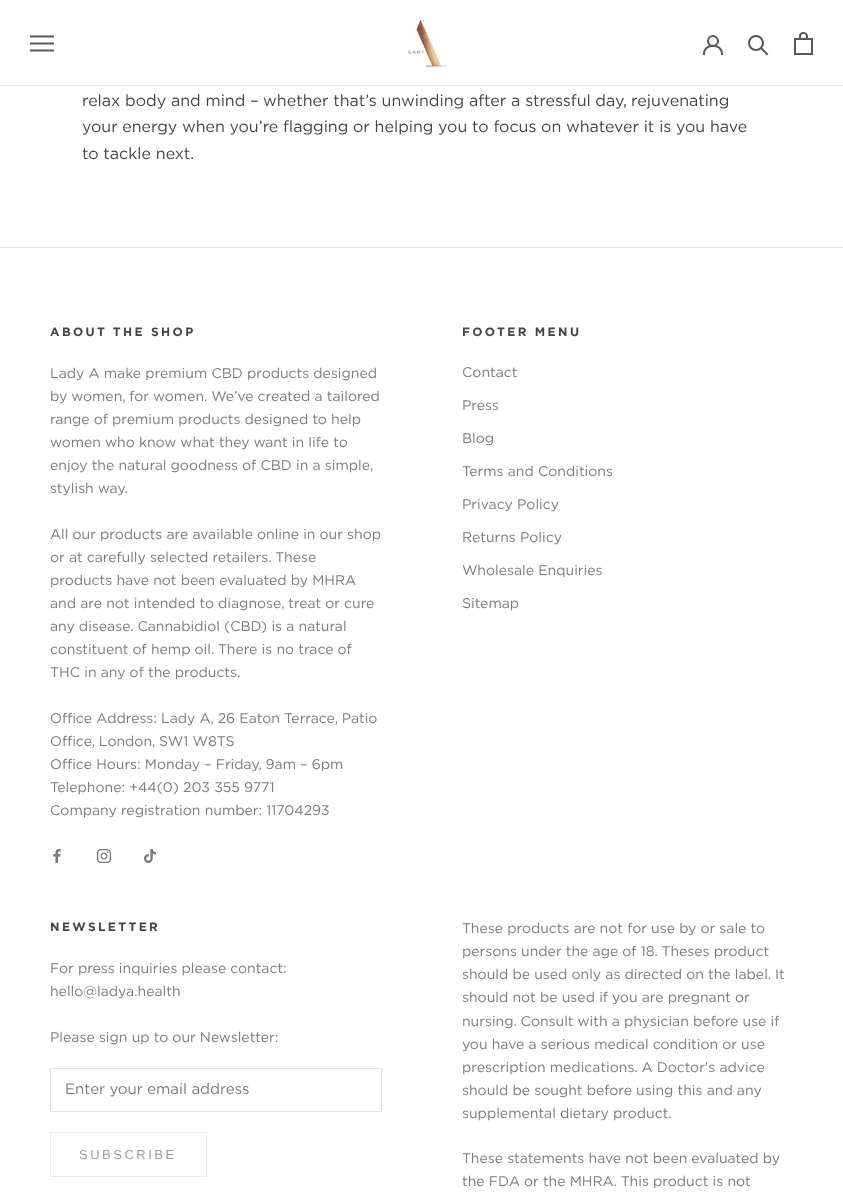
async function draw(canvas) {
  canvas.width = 843;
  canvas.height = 1196;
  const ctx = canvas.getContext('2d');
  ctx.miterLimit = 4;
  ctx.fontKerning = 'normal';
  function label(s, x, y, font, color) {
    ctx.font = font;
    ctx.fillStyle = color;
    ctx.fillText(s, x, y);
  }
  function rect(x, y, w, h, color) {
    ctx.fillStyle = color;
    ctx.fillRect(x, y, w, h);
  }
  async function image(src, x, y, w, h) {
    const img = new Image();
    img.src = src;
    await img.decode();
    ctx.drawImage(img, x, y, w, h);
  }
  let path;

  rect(0, 0, 843, 1196, '#fff');
  rect(0, 85, 843, 1, '#e6e6e6');
  await image('assets/img1.png', 30, 35, 24, 17);
  await image('assets/img2.png', 408, 18, 39, 50);
  path = new Path2D('M704 54C704 43 722 43 722 54');
  ctx.strokeStyle = '#575756';
  ctx.lineWidth = 2;
  ctx.lineCap = 'square';
  ctx.stroke(path);
  ctx.beginPath();
  ctx.arc(713, 41, 5, 0, 2 * Math.PI);
  ctx.stroke();
  path = new Path2D('M767 54L761.5 48.5');
  ctx.stroke(path);
  ctx.beginPath();
  ctx.arc(756, 43, 7, 0, 2 * Math.PI);
  ctx.stroke();
  await image('assets/img3.png', 794, 32, 19, 23);
  label('relax body and mind – whether that’s unwinding after a stressful day, rejuvenating', 82, 106, '16px Gotham', '#454545');
  label('your energy when you’re flagging or helping you to focus on whatever it is you have', 82, 132, '16px Gotham', '#454545');
  label('to tackle next.', 82, 159, '16px Gotham', '#454545');
  rect(0, 247, 843, 1, '#e3e3e3');
  ctx.letterSpacing = '2.4px';
  label('ABOUT THE SHOP', 50, 336, 'bold 12px Gotham', '#454545');
  ctx.letterSpacing = '0px';
  label('Lady A make premium CBD products designed', 50, 378, '14px Gotham', '#7c7a7a');
  label('by women, for women. We’ve created a tailored', 50, 401, '14px Gotham', '#7c7a7a');
  label('range of premium products designed to help', 50, 424, '14px Gotham', '#7c7a7a');
  label('women who know what they want in life to', 50, 447, '14px Gotham', '#7c7a7a');
  label('enjoy the natural goodness of CBD in a simple,', 50, 470, '14px Gotham', '#7c7a7a');
  label('stylish way.', 50, 493, '14px Gotham', '#7c7a7a');
  label('All our products are available online in our shop', 50, 539, '14px Gotham', '#7c7a7a');
  label('or at carefully selected retailers. These', 50, 562, '14px Gotham', '#7c7a7a');
  label('products have not been evaluated by MHRA', 50, 585, '14px Gotham', '#7c7a7a');
  label('and are not intended to diagnose, treat or cure', 50, 608, '14px Gotham', '#7c7a7a');
  label('any disease. Cannabidiol (CBD) is a natural', 50, 631, '14px Gotham', '#7c7a7a');
  label('constituent of hemp oil. There is no trace of', 50, 654, '14px Gotham', '#7c7a7a');
  label('THC in any of the products.', 50, 677, '14px Gotham', '#7c7a7a');
  label('Office Address: Lady A, 26 Eaton Terrace, Patio', 50, 723, '14px Gotham', '#7c7a7a');
  label('Office, London, SW1 W8TS', 50, 746, '14px Gotham', '#7c7a7a');
  label('Office Hours: Monday – Friday, 9am – 6pm', 50, 769, '14px Gotham', '#7c7a7a');
  label('Telephone: +44(0) 203 355 9771', 50, 792, '14px Gotham', '#7c7a7a');
  label('Company registration number: 11704293', 50, 815, '14px Gotham', '#7c7a7a');
  await image('assets/img4.png', 53, 849, 8, 14);
  await image('assets/img5.png', 97, 849, 14, 14);
  await image('assets/img6.png', 144, 849, 12, 14);
  ctx.letterSpacing = '2.4px';
  label('FOOTER MENU', 462, 336, 'bold 12px Gotham', '#454545');
  ctx.letterSpacing = '0px';
  label('Contact', 462, 377, '14px Gotham', '#7c7a7a');
  label('Press', 462, 410, '14px Gotham', '#7c7a7a');
  label('Blog', 462, 443, '14px Gotham', '#7c7a7a');
  label('Terms and Conditions', 462, 476, '14px Gotham', '#7c7a7a');
  label('Privacy Policy', 462, 509, '14px Gotham', '#7c7a7a');
  label('Returns Policy', 462, 542, '14px Gotham', '#7c7a7a');
  label('Wholesale Enquiries', 462, 575, '14px Gotham', '#7c7a7a');
  label('Sitemap', 462, 608, '14px Gotham', '#7c7a7a');
  ctx.letterSpacing = '2.4px';
  label('NEWSLETTER', 50, 931, 'bold 12px Gotham', '#454545');
  ctx.letterSpacing = '0px';
  label('For press inquiries please contact:', 50, 973, '14px Gotham', '#7c7a7a');
  label('hello@ladya.health', 50, 996, '14px Gotham', '#7c7a7a');
  label('Please sign up to our Newsletter:', 50, 1042, '14px Gotham', '#7c7a7a');
  ctx.strokeStyle = '#e3e3e3';
  ctx.lineWidth = 1;
  ctx.strokeRect(50.5, 1068.5, 331, 43);
  label('Enter your email address', 65, 1094, '15px Gotham', '#7c7a7a');
  ctx.strokeStyle = '#ebebeb';
  ctx.strokeRect(50.5, 1132.5, 156, 44);
  ctx.letterSpacing = '2.5px';
  label('SUBSCRIBE', 79, 1159, '13px Arimo', '#9d9d9d');
  ctx.letterSpacing = '0px';
  label('These products are not for use by or sale to', 462, 933, '14px Gotham', '#7c7a7a');
  label('persons under the age of 18. Theses product', 462, 956, '14px Gotham', '#7c7a7a');
  label('should be used only as directed on the label. It', 462, 979, '14px Gotham', '#7c7a7a');
  label('should not be used if you are pregnant or', 462, 1002, '14px Gotham', '#7c7a7a');
  label('nursing. Consult with a physician before use if', 462, 1026, '14px Gotham', '#7c7a7a');
  label('you have a serious medical condition or use', 462, 1049, '14px Gotham', '#7c7a7a');
  label('prescription medications. A Doctor\'s advice', 462, 1072, '14px Gotham', '#7c7a7a');
  label('should be sought before using this and any', 462, 1095, '14px Gotham', '#7c7a7a');
  label('supplemental dietary product.', 462, 1118, '14px Gotham', '#7c7a7a');
  label('These statements have not been evaluated by', 462, 1163, '14px Gotham', '#7c7a7a');
  label('the FDA or the MHRA. This product is not', 462, 1186, '14px Gotham', '#7c7a7a');
}

draw(document.querySelector('canvas'));
